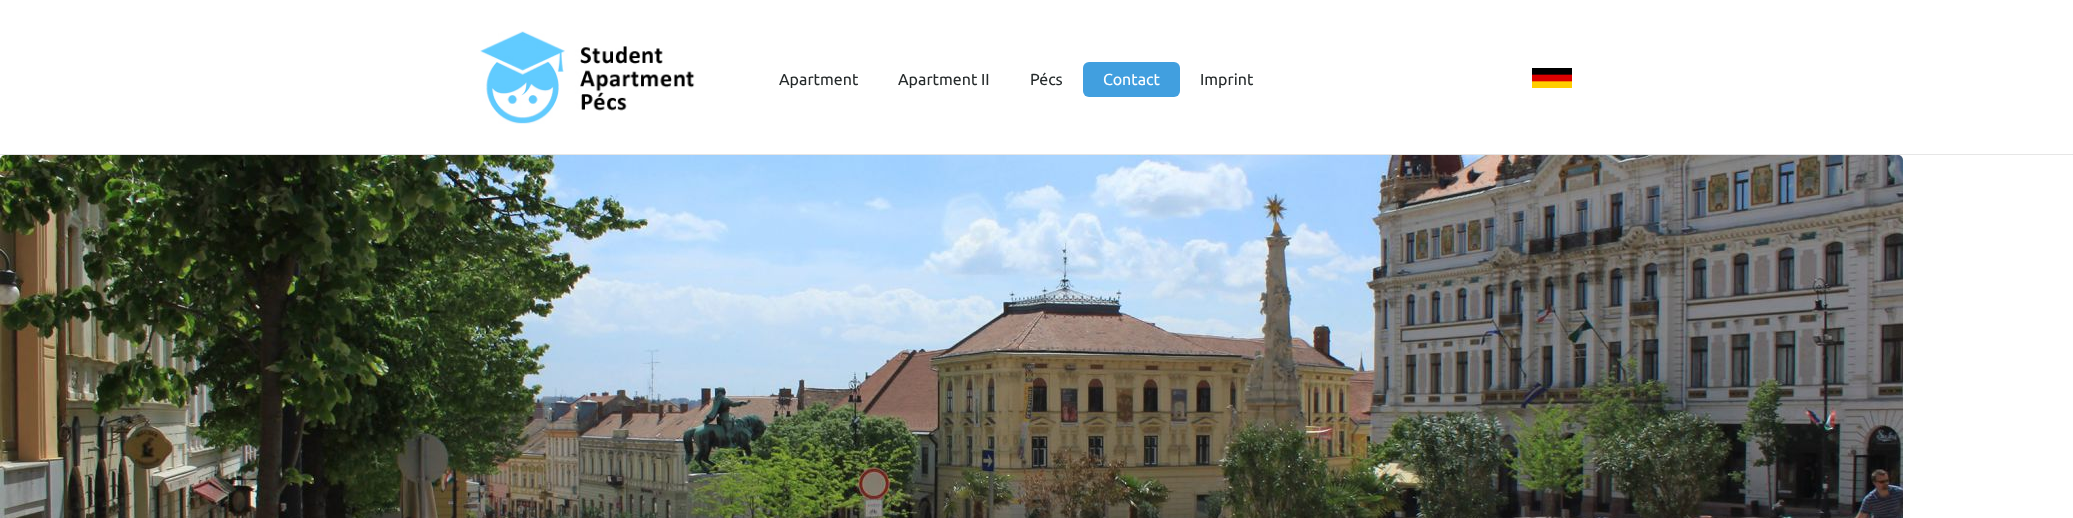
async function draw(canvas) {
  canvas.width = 2073;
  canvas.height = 518;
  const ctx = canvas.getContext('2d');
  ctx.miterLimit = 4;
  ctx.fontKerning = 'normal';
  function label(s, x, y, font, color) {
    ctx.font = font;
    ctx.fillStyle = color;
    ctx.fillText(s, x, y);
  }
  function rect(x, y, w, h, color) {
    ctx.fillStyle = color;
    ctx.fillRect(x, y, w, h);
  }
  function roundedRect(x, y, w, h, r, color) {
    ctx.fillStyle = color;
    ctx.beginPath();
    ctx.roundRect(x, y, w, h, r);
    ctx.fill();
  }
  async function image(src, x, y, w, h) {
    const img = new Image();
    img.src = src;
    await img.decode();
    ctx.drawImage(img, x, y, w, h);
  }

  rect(0, 0, 2073, 518, '#fff');
  rect(0, 154, 2073, 1, '#e6e6e6');
  await image('assets/img1.png', 480, 31, 215, 93);
  label('Apartment', 779, 85, '16px Ubuntu', '#262b2c');
  label('Apartment II', 898, 85, '16px Ubuntu', '#262b2c');
  label('Pécs', 1030, 85, '16px Ubuntu', '#262b2c');
  roundedRect(1083, 62, 97, 35, 6, '#419fdf');
  label('Contact', 1103, 85, '16px Ubuntu', '#fff');
  label('Imprint', 1200, 85, '16px Ubuntu', '#262b2c');
  await image('assets/img2.png', 1532, 68, 40, 20);
  await image('assets/img3.png', 0, 155, 1903, 363);
}

draw(document.querySelector('canvas'));
